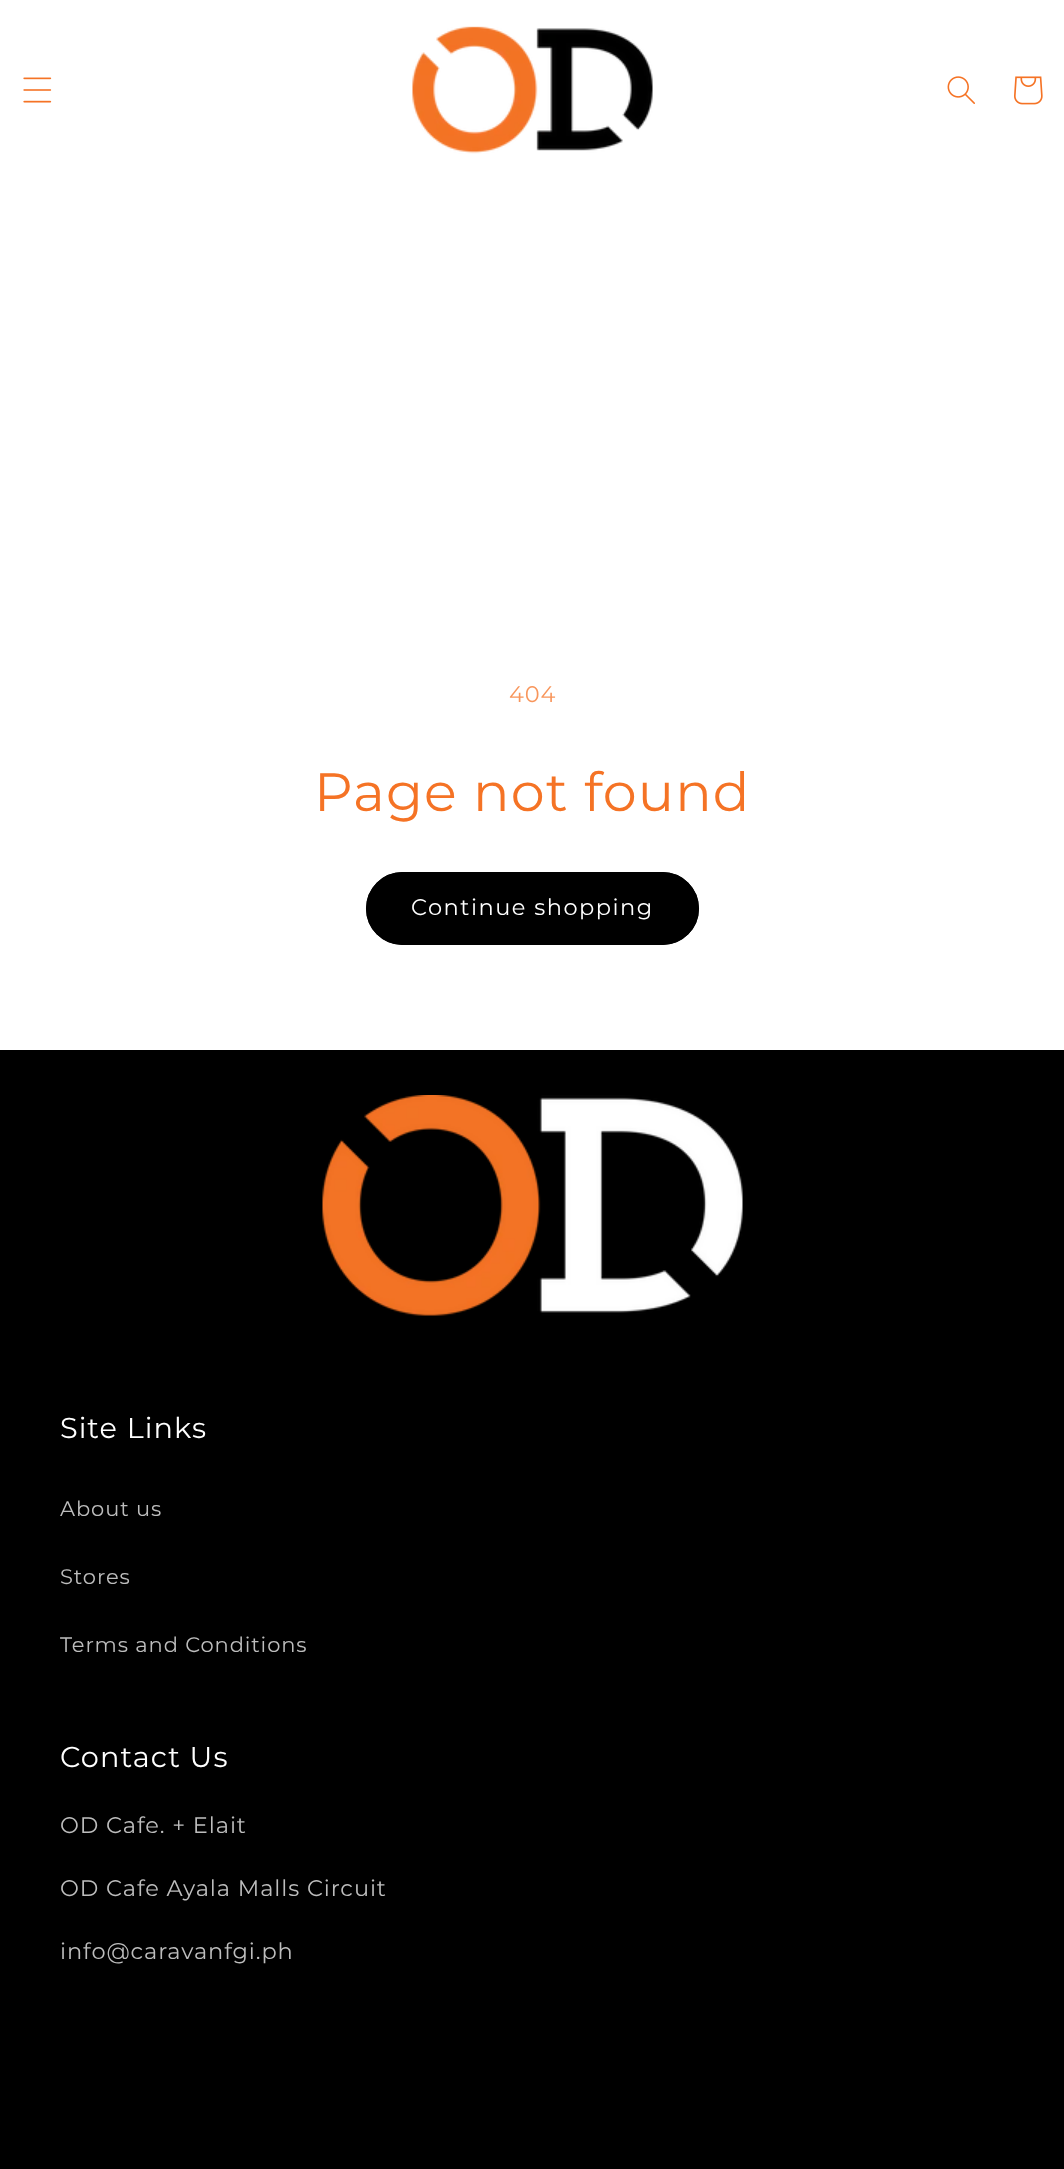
async function draw(canvas) {
  canvas.width = 1064;
  canvas.height = 2169;
  const ctx = canvas.getContext('2d');
  ctx.miterLimit = 4;
  ctx.fontKerning = 'normal';
  function label(s, x, y, font, color) {
    ctx.font = font;
    ctx.fillStyle = color;
    ctx.fillText(s, x, y);
  }
  function rect(x, y, w, h, color) {
    ctx.fillStyle = color;
    ctx.fillRect(x, y, w, h);
  }
  function roundedRect(x, y, w, h, r, color) {
    ctx.fillStyle = color;
    ctx.beginPath();
    ctx.roundRect(x, y, w, h, r);
    ctx.fill();
  }
  async function image(src, x, y, w, h) {
    const img = new Image();
    img.src = src;
    await img.decode();
    ctx.drawImage(img, x, y, w, h);
  }

  rect(0, 0, 1064, 2169, '#fff');
  await image('assets/img1.png', 23, 77, 29, 26);
  await image('assets/img2.png', 412, 26, 241, 128);
  await image('assets/img3.png', 947, 76, 28, 28);
  await image('assets/img4.png', 1014, 76, 29, 29);
  ctx.letterSpacing = '0.9px';
  label('404', 509, 702, '22.5px Montserrat', '#f8965c');
  ctx.letterSpacing = '1.1px';
  label('Page not found', 314, 811, '54px Montserrat', '#f57325');
  roundedRect(366, 872, 333, 73, 36.5, '#000');
  ctx.beginPath();
  ctx.roundRect(367.5, 873.5, 330, 70, 35);
  ctx.strokeStyle = '#000';
  ctx.lineWidth = 3;
  ctx.stroke();
  ctx.letterSpacing = '1.5px';
  label('Continue shopping', 411, 915, '22.5px Montserrat', '#fff');
  rect(0, 1050, 1064, 1119, '#000');
  await image('assets/img5.png', 322, 1095, 421, 221);
  ctx.letterSpacing = '1.1px';
  label('Site Links', 60, 1438, '28.75px Montserrat', '#fff');
  ctx.letterSpacing = '0.9px';
  label('About us', 60, 1516, '21px Montserrat', '#bdbdbd');
  label('Stores', 60, 1584, '21px Montserrat', '#bdbdbd');
  label('Terms and Conditions', 60, 1652, '21px Montserrat', '#bdbdbd');
  ctx.letterSpacing = '1.1px';
  label('Contact Us', 60, 1767, '28.75px Montserrat', '#fff');
  ctx.letterSpacing = '0.9px';
  label('OD Cafe. + Elait', 60, 1833, '22.5px Montserrat', '#bdbdbd');
  label('OD Cafe Ayala Malls Circuit', 60, 1896, '22.5px Montserrat', '#bdbdbd');
  label('info@caravanfgi.ph', 60, 1959, '22.5px Montserrat', '#bdbdbd');
}

draw(document.querySelector('canvas'));
